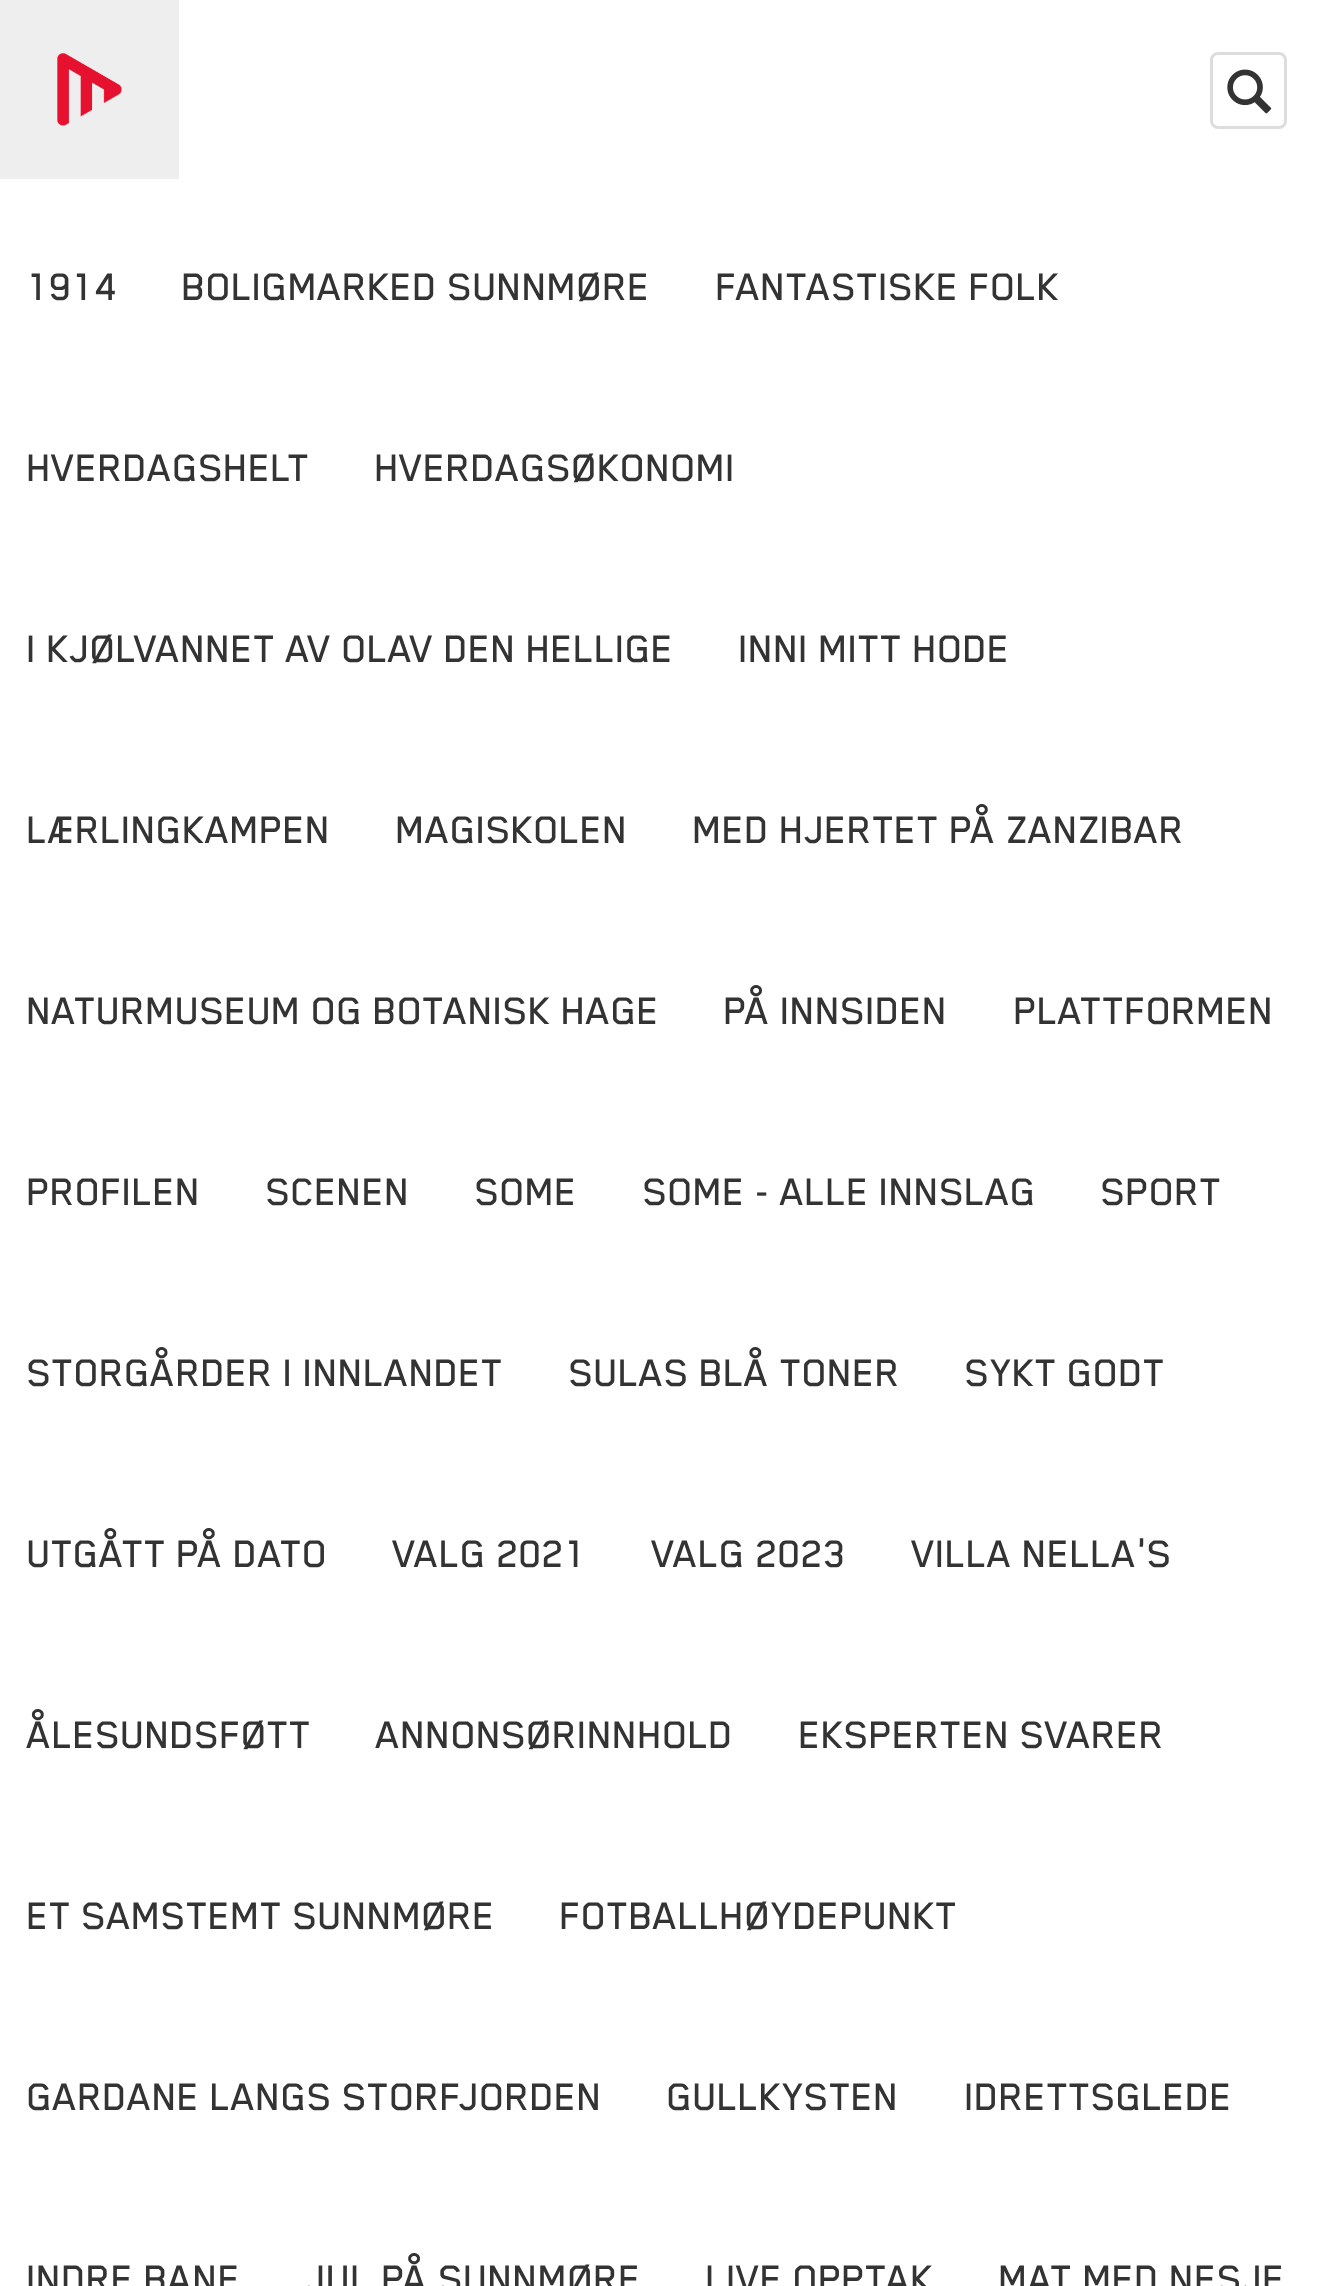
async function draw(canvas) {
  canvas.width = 1335;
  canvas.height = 2286;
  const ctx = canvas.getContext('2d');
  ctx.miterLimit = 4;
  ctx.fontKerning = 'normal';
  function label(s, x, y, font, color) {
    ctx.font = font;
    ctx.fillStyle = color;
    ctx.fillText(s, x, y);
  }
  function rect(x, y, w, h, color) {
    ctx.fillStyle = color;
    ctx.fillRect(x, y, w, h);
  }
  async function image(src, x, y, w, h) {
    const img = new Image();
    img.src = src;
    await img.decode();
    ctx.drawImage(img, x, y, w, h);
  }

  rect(0, 0, 1335, 2286, '#fff');
  rect(0, 0, 179, 179, '#eee');
  await image('assets/img1.png', 57, 53, 65, 73);
  ctx.beginPath();
  ctx.roundRect(1211.5, 53.5, 74, 74, 6.5);
  ctx.strokeStyle = '#ddd';
  ctx.lineWidth = 3;
  ctx.stroke();
  await image('assets/img2.png', 1227, 69, 45, 45);
  label('1914', 28, 300, '500 44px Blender', '#333');
  label('BOLIGMARKED SUNNMØRE', 183, 300, '500 44px Blender', '#333');
  label('FANTASTISKE FOLK', 717, 300, '500 44px Blender', '#333');
  label('HVERDAGSHELT', 28, 481, '500 44px Blender', '#333');
  label('HVERDAGSØKONOMI', 376, 481, '500 44px Blender', '#333');
  label('I KJØLVANNET AV OLAV DEN HELLIGE', 28, 662, '500 44px Blender', '#333');
  label('INNI MITT HODE', 740, 662, '500 44px Blender', '#333');
  label('LÆRLINGKAMPEN', 28, 843, '500 44px Blender', '#333');
  label('MAGISKOLEN', 397, 843, '500 44px Blender', '#333');
  label('MED HJERTET PÅ ZANZIBAR', 694, 843, '500 44px Blender', '#333');
  label('NATURMUSEUM OG BOTANISK HAGE', 28, 1024, '500 44px Blender', '#333');
  label('PÅ INNSIDEN', 725, 1024, '500 44px Blender', '#333');
  label('PLATTFORMEN', 1015, 1024, '500 44px Blender', '#333');
  label('PROFILEN', 28, 1205, '500 44px Blender', '#333');
  label('SCENEN', 267, 1205, '500 44px Blender', '#333');
  label('SOME', 476, 1205, '500 44px Blender', '#333');
  label('SOME - ALLE INNSLAG', 644, 1205, '500 44px Blender', '#333');
  label('SPORT', 1102, 1205, '500 44px Blender', '#333');
  label('STORGÅRDER I INNLANDET', 28, 1386, '500 44px Blender', '#333');
  label('SULAS BLÅ TONER', 570, 1386, '500 44px Blender', '#333');
  label('SYKT GODT', 966, 1386, '500 44px Blender', '#333');
  label('UTGÅTT PÅ DATO', 28, 1567, '500 44px Blender', '#333');
  label('VALG 2021', 394, 1567, '500 44px Blender', '#333');
  label('VALG 2023', 653, 1567, '500 44px Blender', '#333');
  label('VILLA NELLA\'S', 913, 1567, '500 44px Blender', '#333');
  label('ÅLESUNDSFØTT', 28, 1748, '500 44px Blender', '#333');
  label('ANNONSØRINNHOLD', 377, 1748, '500 44px Blender', '#333');
  label('EKSPERTEN SVARER', 800, 1748, '500 44px Blender', '#333');
  label('ET SAMSTEMT SUNNMØRE', 28, 1929, '500 44px Blender', '#333');
  label('FOTBALLHØYDEPUNKT', 561, 1929, '500 44px Blender', '#333');
  label('GARDANE LANGS STORFJORDEN', 28, 2110, '500 44px Blender', '#333');
  label('GULLKYSTEN', 668, 2110, '500 44px Blender', '#333');
  label('IDRETTSGLEDE', 966, 2110, '500 44px Blender', '#333');
  label('INDRE BANE', 28, 2292, '500 44px Blender', '#333');
  label('JUL PÅ SUNNMØRE', 307, 2292, '500 44px Blender', '#333');
  label('LIVE OPPTAK', 707, 2292, '500 44px Blender', '#333');
  label('MAT MED NESJE', 1000, 2292, '500 44px Blender', '#333');
}

draw(document.querySelector('canvas'));
